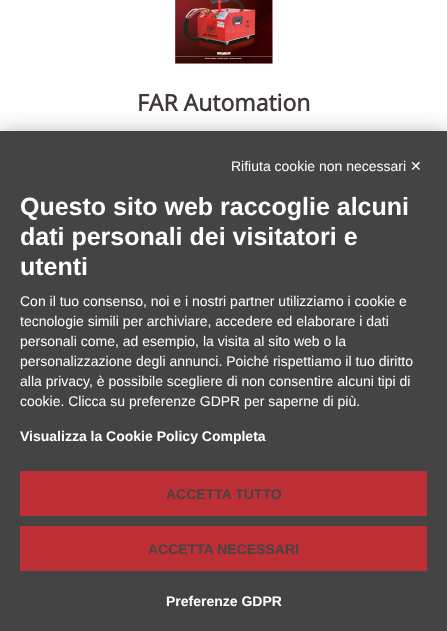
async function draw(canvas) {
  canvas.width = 447;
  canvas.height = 631;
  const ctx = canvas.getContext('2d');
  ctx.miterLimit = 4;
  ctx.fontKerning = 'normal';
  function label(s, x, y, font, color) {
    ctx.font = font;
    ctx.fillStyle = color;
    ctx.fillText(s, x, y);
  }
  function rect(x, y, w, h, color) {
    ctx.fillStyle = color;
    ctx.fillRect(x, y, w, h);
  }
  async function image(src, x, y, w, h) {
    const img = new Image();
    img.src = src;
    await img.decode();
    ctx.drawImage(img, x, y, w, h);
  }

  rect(0, 0, 447, 631, '#fff');
  await image('assets/img1.png', 175, 0, 98, 64);
  label('FAR Automation', 137, 111, 'bold 23px Open Sans', '#40393b');
  ctx.fillStyle = '#00000045';
  ctx.filter = 'blur(10px)';
  ctx.beginPath();
  ctx.rect(0, 131, 447, 500);
  ctx.fill();
  ctx.filter = 'none';
  rect(0, 131, 447, 500, '#444');
  label('Rifiuta cookie non necessari', 231, 171, '14px Liberation Sans', '#fff');
  label('✕', 410, 171, '14px DejaVu Sans', '#fff');
  label('Questo sito web raccoglie alcuni', 20, 215, 'bold 25px Liberation Sans', '#fff');
  label('dati personali dei visitatori e', 20, 245, 'bold 25px Liberation Sans', '#fff');
  label('utenti', 20, 275, 'bold 25px Liberation Sans', '#fff');
  label('Con il tuo consenso, noi e i nostri partner utilizziamo i cookie e', 20, 306, '14px Liberation Sans', '#fff');
  label('tecnologie simili per archiviare, accedere ed elaborare i dati', 20, 326, '14px Liberation Sans', '#fff');
  label('personali come, ad esempio, la visita al sito web o la', 20, 346, '14px Liberation Sans', '#fff');
  label('personalizzazione degli annunci. Poiché rispettiamo il tuo diritto', 20, 366, '14px Liberation Sans', '#fff');
  label('alla privacy, è possibile scegliere di non consentire alcuni tipi di', 20, 386, '14px Liberation Sans', '#fff');
  label('cookie. Clicca su preferenze GDPR per saperne di più.', 20, 406, '14px Liberation Sans', '#fff');
  label('Visualizza la Cookie Policy Completa', 20, 441, 'bold 14px Liberation Sans', '#fff');
  rect(20, 471, 407, 45, '#bd2f35');
  label('ACCETTA TUTTO', 166, 499, 'bold 14px Liberation Sans', '#444');
  rect(20, 526, 407, 45, '#bd2f35');
  label('ACCETTA NECESSARI', 148, 554, 'bold 14px Liberation Sans', '#444');
  label('Preferenze GDPR', 166, 606, 'bold 14px Liberation Sans', '#fff');
}

draw(document.querySelector('canvas'));
